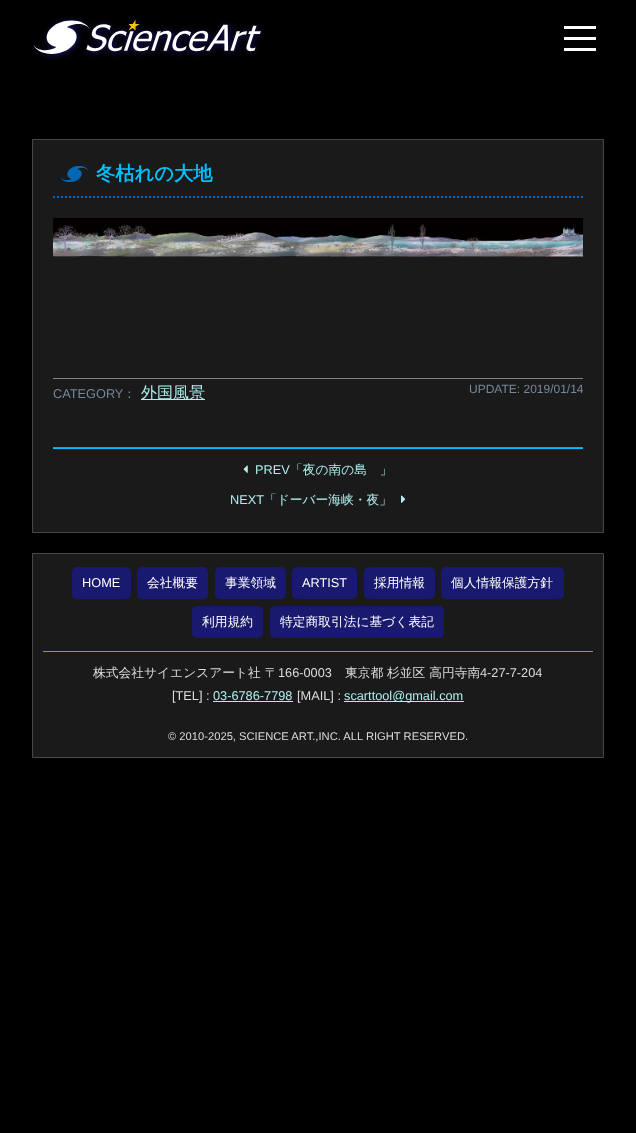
async function draw(canvas) {
  canvas.width = 636;
  canvas.height = 1133;
  const ctx = canvas.getContext('2d');
  ctx.miterLimit = 4;
  ctx.fontKerning = 'normal';
  function label(s, x, y, font, color) {
    ctx.font = font;
    ctx.fillStyle = color;
    ctx.fillText(s, x, y);
  }
  function rect(x, y, w, h, color) {
    ctx.fillStyle = color;
    ctx.fillRect(x, y, w, h);
  }
  function roundedRect(x, y, w, h, r, color) {
    ctx.fillStyle = color;
    ctx.beginPath();
    ctx.roundRect(x, y, w, h, r);
    ctx.fill();
  }
  async function image(src, x, y, w, h) {
    const img = new Image();
    img.src = src;
    await img.decode();
    ctx.drawImage(img, x, y, w, h);
  }
  let path;

  rect(0, 0, 636, 1133, '#000');
  await image('assets/img1.png', 33, 16, 233, 45);
  rect(564, 26, 32, 3, '#fff');
  rect(564, 37, 32, 3, '#fff');
  rect(564, 48, 32, 3, '#fff');
  ctx.fillStyle = '#1a1a1a';
  ctx.beginPath();
  ctx.rect(32.5, 139.5, 571, 393);
  ctx.fill();
  ctx.strokeStyle = '#484848';
  ctx.stroke();
  path = new Path2D('M53 197H583');
  ctx.strokeStyle = '#06c';
  ctx.lineWidth = 2;
  ctx.setLineDash([2, 2]);
  ctx.stroke(path);
  await image('assets/img2.png', 61, 166, 27, 16);
  label('冬枯れの大地', 96, 180, 'bold 19.25px WenQuanYi Zen Hei', '#00bfff');
  await image('assets/img3.png', 53, 218, 530, 39);
  rect(53, 378, 530, 1, '#808080');
  rect(53, 447, 530, 1, '#808080');
  label('CATEGORY', 53, 398, '12.75px Liberation Sans', '#789');
  label('：', 123, 398, '500 12.75px WenQuanYi Zen Hei', '#789');
  rect(141, 399, 64, 1, '#afeeee');
  label('外国風景', 141, 398, '500 16px WenQuanYi Zen Hei', '#afeeee');
  label('UPDATE: 2019/01/14', 469, 393, '12px Liberation Sans', '#789');
  rect(53, 448, 530, 1, '#00bfff');
  await image('assets/img4.png', 243, 465, 5, 8);
  label('PREV', 255, 474, '12.75px Liberation Sans', '#afeeee');
  label('「夜の南の島　」', 290, 474, '500 12.75px WenQuanYi Zen Hei', '#afeeee');
  label('NEXT', 230, 504, '12.75px Liberation Sans', '#afeeee');
  label('「ドーバー海峡・夜」', 264, 504, '500 12.75px WenQuanYi Zen Hei', '#afeeee');
  await image('assets/img5.png', 401, 495, 5, 8);
  ctx.fillStyle = '#1a1a1a';
  ctx.beginPath();
  ctx.rect(32.5, 553.5, 571, 204);
  ctx.fill();
  ctx.strokeStyle = '#484848';
  ctx.lineWidth = 1;
  ctx.setLineDash([]);
  ctx.stroke();
  rect(43, 651, 550, 1, '#6495ed');
  roundedRect(72, 567, 59, 32, 5, '#191970');
  label('HOME', 82, 587, '12.75px Liberation Sans', '#fff');
  roundedRect(137, 567, 71, 32, 5, '#191970');
  label('会社概要', 147, 587, '500 12.75px WenQuanYi Zen Hei', '#fff');
  roundedRect(215, 567, 71, 32, 5, '#191970');
  label('事業領域', 225, 587, '500 12.75px WenQuanYi Zen Hei', '#fff');
  roundedRect(292, 567, 65, 32, 5, '#191970');
  label('ARTIST', 302, 587, '12.75px Liberation Sans', '#fff');
  roundedRect(364, 567, 71, 32, 5, '#191970');
  label('採用情報', 374, 587, '500 12.75px WenQuanYi Zen Hei', '#fff');
  roundedRect(441, 567, 123, 32, 5, '#191970');
  label('個人情報保護方針', 451, 587, '500 12.75px WenQuanYi Zen Hei', '#fff');
  roundedRect(192, 606, 71, 32, 5, '#191970');
  label('利用規約', 202, 626, '500 12.75px WenQuanYi Zen Hei', '#fff');
  roundedRect(270, 606, 174, 32, 5, '#191970');
  label('特定商取引法に基づく表記', 280, 626, '500 12.75px WenQuanYi Zen Hei', '#fff');
  label('株式会社サイエンスアート社 〒', 93, 677, '500 12.75px WenQuanYi Zen Hei', '#dcdcdc');
  label('166-0003', 278, 677, '12.75px Liberation Sans', '#dcdcdc');
  label('東京都 杉並区 高円寺南', 345, 677, '500 12.75px WenQuanYi Zen Hei', '#dcdcdc');
  label('4-27-7-204', 480, 677, '12.75px Liberation Sans', '#dcdcdc');
  label('[TEL] :', 172, 700, '12.75px Liberation Sans', '#dcdcdc');
  label('03-6786-7798', 213, 700, '12.75px Liberation Sans', '#afeeee');
  rect(213, 701, 80, 1, '#afeeee');
  label('[MAIL] :', 297, 700, '12.75px Liberation Sans', '#dcdcdc');
  rect(344, 701, 120, 1, '#afeeee');
  label('scarttool@gmail.com', 344, 700, '12.75px Liberation Sans', '#afeeee');
  label('© 2010-2025, SCIENCE ART.,INC. ALL RIGHT RESERVED.', 168, 740, '11.2px Liberation Sans', '#dcdcdc');
}

draw(document.querySelector('canvas'));
